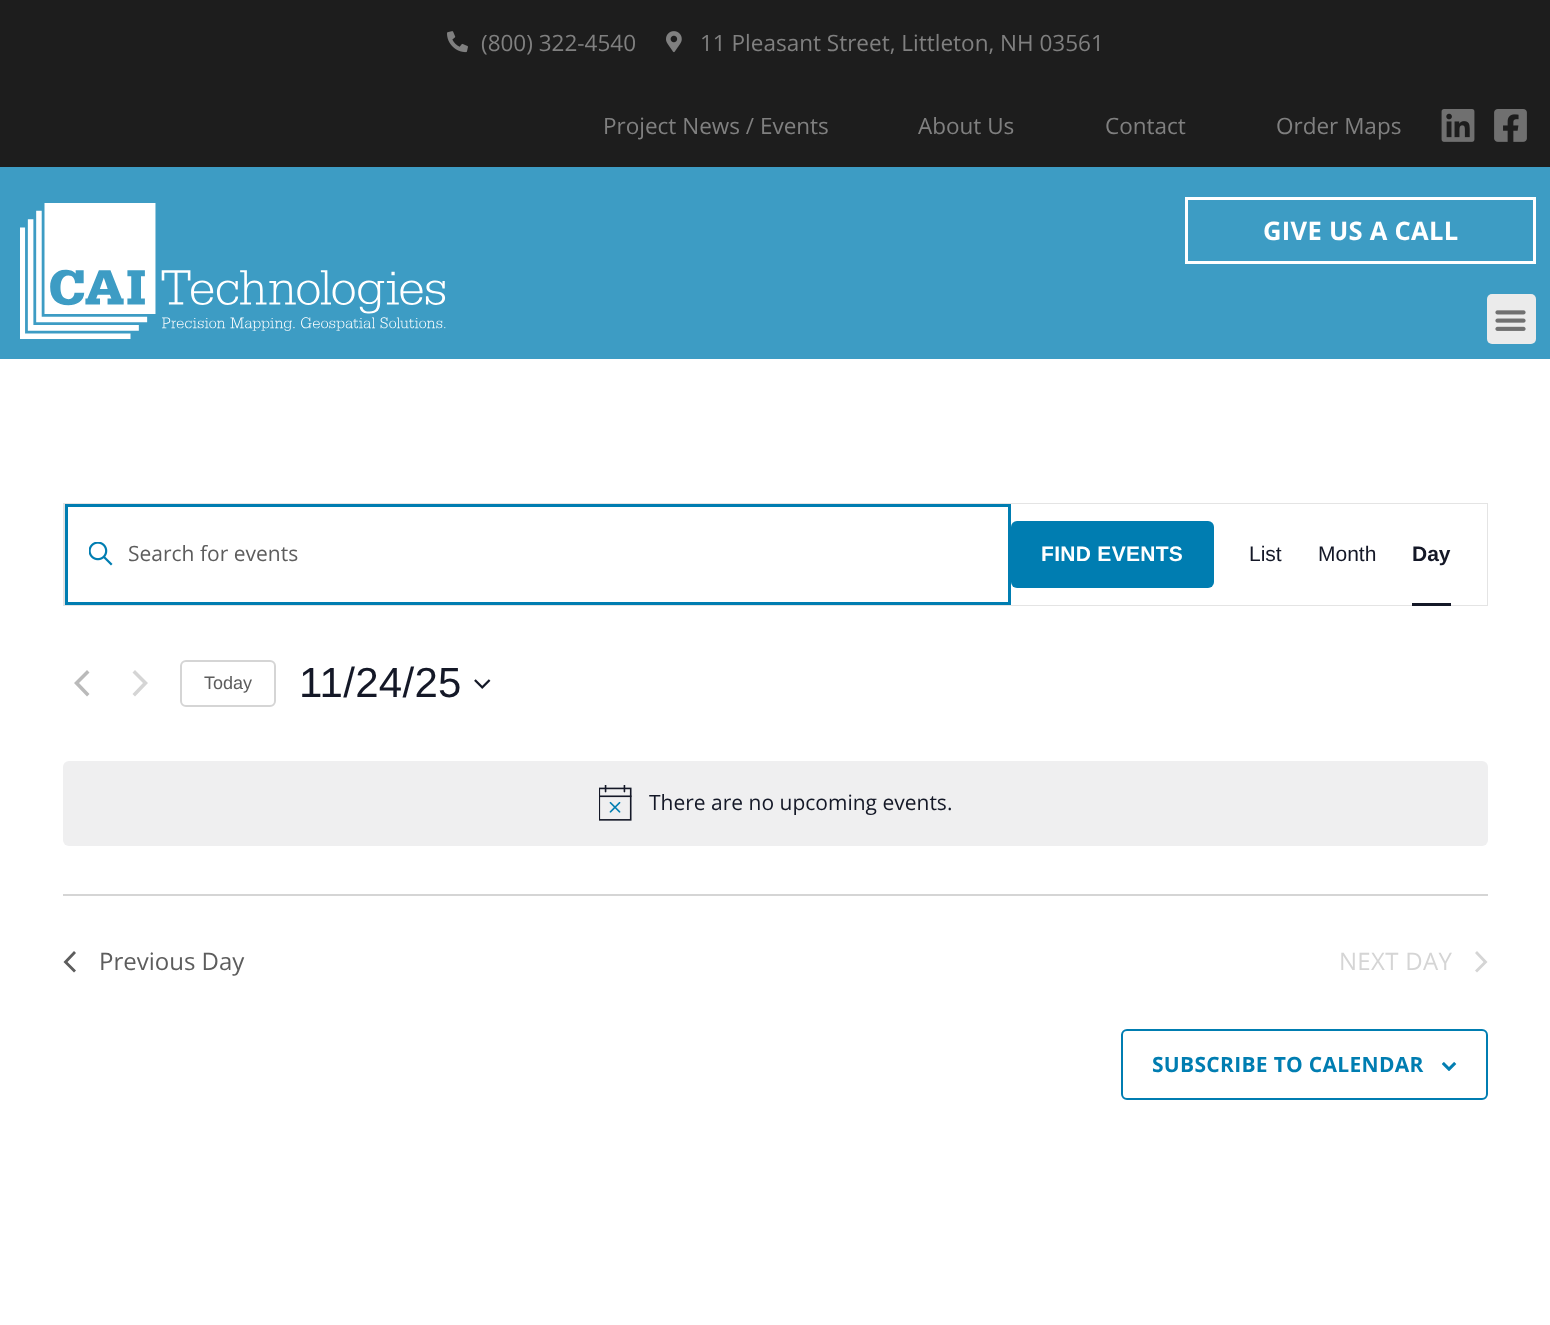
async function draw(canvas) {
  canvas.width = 1550;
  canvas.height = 1325;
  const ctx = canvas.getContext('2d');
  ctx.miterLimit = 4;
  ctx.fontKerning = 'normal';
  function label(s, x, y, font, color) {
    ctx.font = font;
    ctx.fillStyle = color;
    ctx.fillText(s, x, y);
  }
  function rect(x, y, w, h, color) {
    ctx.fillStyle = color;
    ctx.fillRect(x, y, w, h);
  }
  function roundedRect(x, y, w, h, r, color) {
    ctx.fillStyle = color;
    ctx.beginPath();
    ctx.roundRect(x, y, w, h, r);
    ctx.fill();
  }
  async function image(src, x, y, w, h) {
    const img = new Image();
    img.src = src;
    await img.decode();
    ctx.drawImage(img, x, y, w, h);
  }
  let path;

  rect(0, 0, 1550, 1325, '#fff');
  rect(0, 0, 1550, 167, '#1d1d1d');
  await image('assets/img1.png', 447, 31, 21, 22);
  label('(800) 322-4540', 481, 51, '22.5px Open Sans', '#808080');
  await image('assets/img2.png', 666, 31, 16, 22);
  label('11 Pleasant Street, Littleton, NH 03561', 700, 51, '22.5px Open Sans', '#808080');
  label('Project News / Events', 603, 134, '22.5px Open Sans', '#808080');
  label('About Us', 918, 134, '22.5px Open Sans', '#808080');
  label('Contact', 1105, 134, '22.5px Open Sans', '#808080');
  label('Order Maps', 1276, 134, '22.5px Open Sans', '#808080');
  await image('assets/img3.png', 1441, 109, 34, 33);
  await image('assets/img4.png', 1494, 109, 33, 33);
  rect(0, 167, 1550, 192, '#3d9cc4');
  await image('assets/img5.png', 20, 203, 426, 136);
  ctx.strokeStyle = '#fff';
  ctx.lineWidth = 3;
  ctx.strokeRect(1186.5, 198.5, 348, 64);
  ctx.letterSpacing = '0.3px';
  label('GIVE US A CALL', 1263, 240, 'bold 25.5px Open Sans', '#fff');
  roundedRect(1487, 294, 49, 50, 5, '#ebebeb');
  await image('assets/img6.png', 1495, 310, 31, 21);
  ctx.strokeStyle = '#e4e4e4';
  ctx.lineWidth = 2;
  ctx.strokeRect(64, 504, 1423, 101);
  rect(68, 504, 1419, 101, '#fff');
  ctx.strokeStyle = '#007db1';
  ctx.lineWidth = 3;
  ctx.strokeRect(66.5, 505.5, 943, 98);
  await image('assets/img7.png', 89, 542, 24, 24);
  ctx.letterSpacing = '0px';
  label('Search for events', 128, 561, '21px Open Sans', '#5d5d5d');
  roundedRect(1011, 521, 203, 67, 6, '#007db1');
  ctx.letterSpacing = '0.3px';
  label('FIND EVENTS', 1041, 561, 'bold 21px Liberation Sans', '#fff');
  ctx.letterSpacing = '0px';
  label('List', 1249, 561, '21px Liberation Sans', '#141827');
  label('Month', 1318, 561, '21px Liberation Sans', '#141827');
  label('Day', 1412, 561, 'bold 21px Liberation Sans', '#141827');
  rect(1412, 603, 39, 3, '#141827');
  ctx.fillStyle = '#bababa';
  path = new Path2D('M89.5 694L87 696.5L74 683L87 670L89.5 672.5L79 683Z');
  ctx.fill(path);
  ctx.fillStyle = '#d5d5d5';
  path = new Path2D('M132.5 672.5L135 670L148 683L135 696.5L132.5 694L143 683Z');
  ctx.fill(path);
  ctx.beginPath();
  ctx.roundRect(181, 661, 94, 45, 5);
  ctx.strokeStyle = '#d5d5d5';
  ctx.lineWidth = 2;
  ctx.stroke();
  label('Today', 204, 689, '18px Liberation Sans', '#5d5d5d');
  ctx.letterSpacing = '0.3px';
  label('11/24/25', 299, 697, '42px Liberation Sans', '#141827');
  await image('assets/img8.png', 474, 679, 17, 10);
  roundedRect(63, 761, 1425, 85, 6, '#efeff0');
  await image('assets/img9.png', 599, 785, 33, 36);
  ctx.letterSpacing = '0px';
  label('There are no upcoming events.', 649, 810, '21px Open Sans', '#141827');
  rect(63, 894, 1425, 2, '#d5d5d5');
  ctx.fillStyle = '#5d5d5d';
  path = new Path2D('M76 970.5L74 972.5L63.5 962L74 951L76 953L67.5 962Z');
  ctx.fill(path);
  label('Previous Day', 99, 970, '24px Open Sans', '#5d5d5d');
  ctx.letterSpacing = '0.3px';
  label('NEXT DAY', 1339, 970, '24px Open Sans', '#d5d5d5');
  path = new Path2D('M1475 953L1477 951L1487.5 962L1477 972.5L1475 970.5L1483.5 962Z');
  ctx.fill(path);
  ctx.beginPath();
  ctx.roundRect(1122, 1030, 365, 69, 5);
  ctx.strokeStyle = '#007db1';
  ctx.stroke();
  label('SUBSCRIBE TO CALENDAR', 1152, 1072, 'bold 21px Open Sans', '#007db1');
  await image('assets/img10.png', 1442, 1062, 15, 9);
}

draw(document.querySelector('canvas'));
